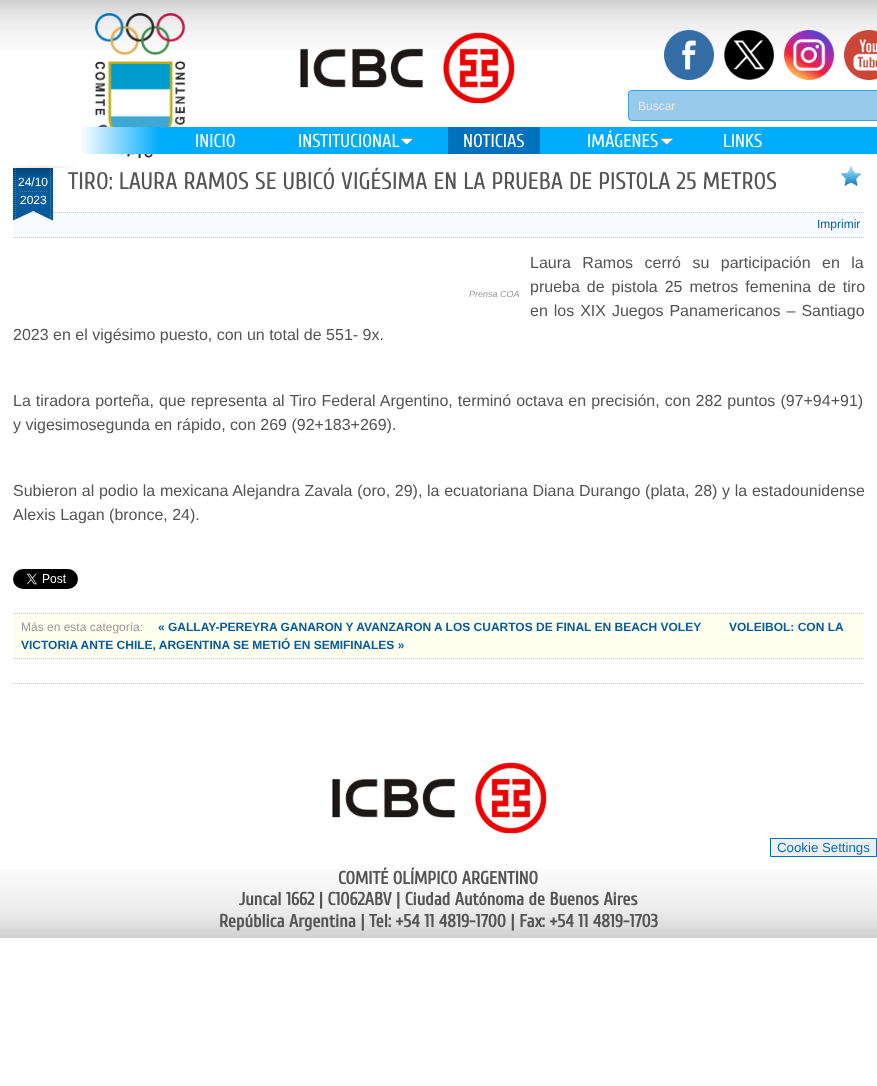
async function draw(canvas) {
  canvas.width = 877;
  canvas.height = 1086;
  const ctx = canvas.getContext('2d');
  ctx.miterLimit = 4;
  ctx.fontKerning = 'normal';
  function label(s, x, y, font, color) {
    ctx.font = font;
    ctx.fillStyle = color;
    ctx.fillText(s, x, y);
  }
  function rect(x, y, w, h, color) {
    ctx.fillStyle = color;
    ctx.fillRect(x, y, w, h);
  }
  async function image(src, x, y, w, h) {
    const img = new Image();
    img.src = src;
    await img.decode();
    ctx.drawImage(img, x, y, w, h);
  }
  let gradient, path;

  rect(0, 0, 877, 1086, '#fff');
  await image('assets/img1.png', 0, 0, 877, 50);
  await image('assets/img2.png', 95, 13, 90, 145);
  await image('assets/img3.png', 299, 32, 216, 72);
  await image('assets/img4.png', 664, 30, 50, 50);
  await image('assets/img5.png', 724, 30, 50, 50);
  await image('assets/img6.png', 784, 30, 50, 50);
  await image('assets/img7.png', 844, 30, 33, 50);
  await image('assets/img8.png', 628, 90, 249, 31);
  label('Buscar', 638, 110, '12px Liberation Sans', '#e6e6e6');
  gradient = ctx.createLinearGradient(877, 141, 80, 140);
  gradient.addColorStop(0.9, '#00acfb');
  gradient.addColorStop(1, '#fff');
  ctx.fillStyle = gradient;
  ctx.fillRect(81, 127, 796, 27);
  label('INICIO', 195, 147, '18.5px Cuprum', '#fff');
  await image('assets/img9.png', 401, 138, 12, 7);
  label('INSTITUCIONAL', 298, 147, '18.5px Cuprum', '#fff');
  rect(448, 127, 92, 27, '#0071bc');
  label('NOTICIAS', 463, 147, '18.5px Cuprum', '#fff');
  await image('assets/img9.png', 661, 138, 12, 7);
  label('IMÁGENES', 587, 147, '18.5px Cuprum', '#fff');
  label('LINKS', 723, 147, '18.5px Cuprum', '#fff');
  await image('assets/img10.png', 841, 166, 20, 20);
  path = new Path2D('M13 683.5H864');
  ctx.strokeStyle = '#ccc';
  ctx.setLineDash([1, 1]);
  ctx.stroke(path);
  rect(13, 212, 851, 26, '#f7fafe');
  path = new Path2D('M13 212.5H864');
  ctx.stroke(path);
  await image('assets/img11.png', 13, 165, 61, 56);
  label('24/10', 18, 186, '12px Liberation Sans', '#fff');
  label('2023', 20, 204, '12px Liberation Sans', '#fff');
  label('TIRO: LAURA RAMOS SE UBICÓ VIGÉSIMA EN LA PRUEBA DE PISTOLA 25 METROS', 68, 189, '24px Cuprum', '#545454');
  path = new Path2D('M13 237.5H864');
  ctx.stroke(path);
  label('Imprimir', 817, 228, '12px Liberation Sans', '#065b9d');
  ctx.wordSpacing = '7px';
  label('Laura Ramos cerró su participación en la', 530, 268, '16px Liberation Sans', '#545454');
  ctx.wordSpacing = '2.5px';
  label('prueba de pistola 25 metros femenina de tiro', 530, 292, '16px Liberation Sans', '#545454');
  ctx.wordSpacing = '1.5px';
  label('en los XIX Juegos Panamericanos – Santiago', 530, 316, '16px Liberation Sans', '#545454');
  ctx.wordSpacing = '0px';
  label('2023 en el vigésimo puesto, con un total de 551- 9x.', 13, 340, '16px Liberation Sans', '#545454');
  ctx.wordSpacing = '0.6px';
  label('La tiradora porteña, que representa al Tiro Federal Argentino, terminó octava en precisión, con 282 puntos (97+94+91)', 13, 406, '16px Liberation Sans', '#545454');
  ctx.wordSpacing = '0px';
  label('y vigesimosegunda en rápido, con 269 (92+183+269).', 13, 430, '16px Liberation Sans', '#545454');
  ctx.wordSpacing = '0.25px';
  label('Subieron al podio la mexicana Alejandra Zavala (oro, 29), la ecuatoriana Diana Durango (plata, 28) y la estadounidense', 13, 496, '16px Liberation Sans', '#545454');
  ctx.wordSpacing = '0px';
  label('Alexis Lagan (bronce, 24).', 13, 520, '16px Liberation Sans', '#545454');
  label('Prensa COA', 469, 297, 'italic 9px Liberation Sans', '#999');
  await image('assets/img12.png', 13, 569, 65, 20);
  rect(13, 613, 851, 46, '#fffff0');
  path = new Path2D('M13 613.5H864');
  ctx.stroke(path);
  path = new Path2D('M13 658.5H864');
  ctx.stroke(path);
  label('Más en esta categoría:', 21, 631, '12px Liberation Sans', '#999');
  label('« GALLAY-PEREYRA GANARON Y AVANZARON A LOS CUARTOS DE FINAL EN BEACH VOLEY', 158, 631, 'bold 12px Liberation Sans', '#065b9d');
  label('VOLEIBOL: CON LA', 729, 631, 'bold 12px Liberation Sans', '#065b9d');
  label('VICTORIA ANTE CHILE, ARGENTINA SE METIÓ EN SEMIFINALES »', 21, 649, 'bold 12px Liberation Sans', '#065b9d');
  await image('assets/img13.png', 0, 869, 877, 69);
  await image('assets/img14.png', 331, 762, 216, 72);
  ctx.fillStyle = '#efefef';
  ctx.beginPath();
  ctx.rect(770.5, 838.5, 106, 18);
  ctx.fill();
  ctx.strokeStyle = '#0071bc';
  ctx.setLineDash([]);
  ctx.stroke();
  label('Cookie Settings', 777, 852, '13.25px Liberation Sans', '#0071bc');
  label('COMITÉ OLÍMPICO ARGENTINO', 338, 884, 'bold 18px Cuprum', '#545454');
  label('Juncal 1662 | C1062ABV | Ciudad Autónoma de Buenos Aires', 239, 905, 'bold 18px Cuprum', '#545454');
  label('República Argentina | Tel: +54 11 4819-1700 | Fax: +54 11 4819-1703', 219, 927, 'bold 18px Cuprum', '#545454');
}

draw(document.querySelector('canvas'));
